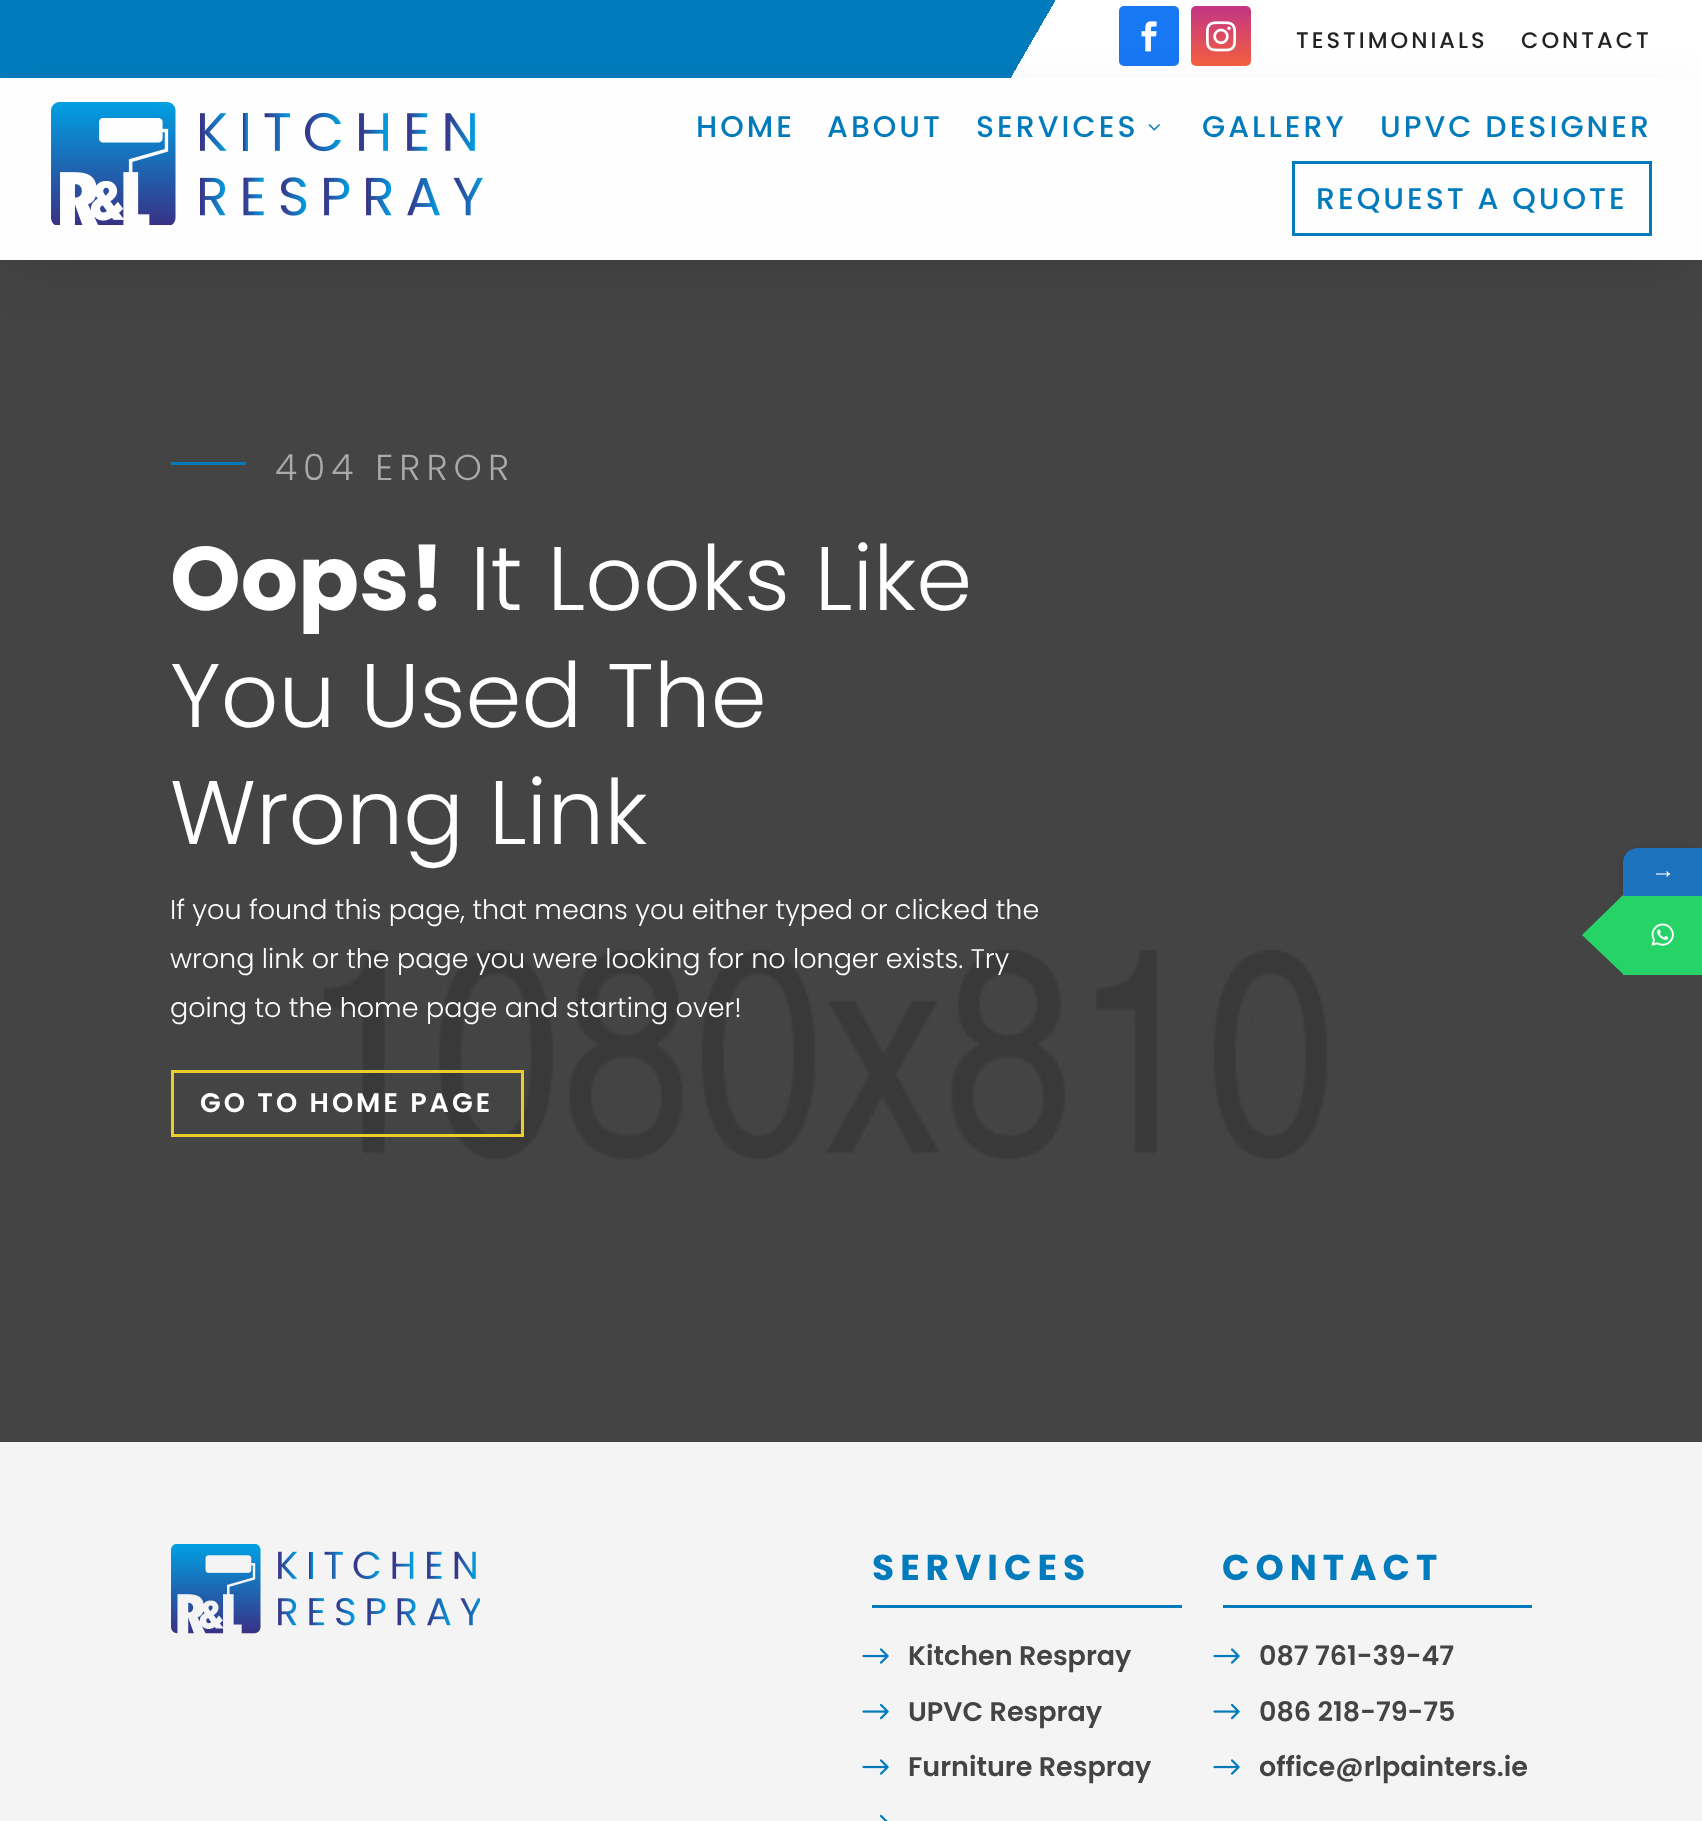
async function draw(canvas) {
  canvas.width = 1702;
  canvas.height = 1821;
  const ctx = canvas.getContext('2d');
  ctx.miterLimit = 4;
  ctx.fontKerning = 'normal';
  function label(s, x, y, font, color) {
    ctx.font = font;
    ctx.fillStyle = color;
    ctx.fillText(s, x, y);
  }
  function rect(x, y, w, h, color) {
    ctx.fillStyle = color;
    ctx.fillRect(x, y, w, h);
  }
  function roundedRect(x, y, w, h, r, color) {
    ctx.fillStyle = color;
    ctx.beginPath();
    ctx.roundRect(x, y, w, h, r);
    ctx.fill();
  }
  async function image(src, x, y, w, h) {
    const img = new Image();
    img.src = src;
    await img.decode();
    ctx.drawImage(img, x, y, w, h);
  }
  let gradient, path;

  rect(0, 0, 1702, 1821, '#fff');
  gradient = ctx.createLinearGradient(192, -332, 1511, 430);
  gradient.addColorStop(0.6, '#017bbc');
  gradient.addColorStop(0.6, '#fff');
  ctx.fillStyle = gradient;
  ctx.fillRect(0, 0, 1055, 78);
  roundedRect(1119, 6, 60, 60, 5, '#1877f2');
  await image('assets/img1.png', 1141, 21, 16, 31);
  gradient = ctx.createLinearGradient(1221, 6, 1221, 66);
  gradient.addColorStop(0, '#c13584');
  gradient.addColorStop(1, '#f56040');
  ctx.fillStyle = gradient;
  ctx.beginPath();
  ctx.roundRect(1191, 6, 60, 60, 5);
  ctx.fill();
  await image('assets/img2.png', 1206, 21, 30, 31);
  ctx.letterSpacing = '3px';
  label('TESTIMONIALS', 1296, 48, '500 22.5px Poppins', '#222');
  label('CONTACT', 1521, 48, '500 22.5px Poppins', '#222');
  await image('assets/img5.png', 0, 260, 1702, 1163);
  ctx.fillStyle = '#0000001a';
  ctx.filter = 'blur(30px)';
  ctx.beginPath();
  ctx.rect(9, 105, 1685, 164);
  ctx.fill();
  ctx.filter = 'none';
  rect(0, 78, 1702, 182, '#fefefe');
  await image('assets/img3.png', 51, 102, 432, 123);
  label('HOME', 696, 137, '500 30px Poppins', '#017bbc');
  label('ABOUT', 827, 137, '500 30px Poppins', '#017bbc');
  label('SERVICES', 976, 137, '500 30px Poppins', '#017bbc');
  await image('assets/img4.png', 1148, 124, 12, 7);
  label('GALLERY', 1202, 137, '500 30px Poppins', '#017bbc');
  label('UPVC DESIGNER', 1380, 137, '500 30px Poppins', '#017bbc');
  ctx.strokeStyle = '#017bbc';
  ctx.lineWidth = 3;
  ctx.strokeRect(1293.5, 162.5, 357, 72);
  label('REQUEST A QUOTE', 1316, 209, '500 30px Poppins', '#017bbc');
  rect(171, 462, 75, 3, '#017bbc');
  ctx.letterSpacing = '6px';
  label('404 ERROR', 275, 480, '300 36px Poppins', '#aaa');
  ctx.letterSpacing = '0px';
  label('Oops!', 170, 610, 'bold 90px Poppins', '#fff');
  label('It Looks Like', 470, 610, '300 90px Poppins', '#fff');
  label('You Used The', 170, 727, '300 90px Poppins', '#fff');
  label('Wrong Link', 170, 844, '300 90px Poppins', '#fff');
  label('If you found this page, that means you either typed or clicked the', 170, 919, '300 27px Poppins', '#fff');
  label('wrong link or the page you were looking for no longer exists. Try', 170, 968, '300 27px Poppins', '#fff');
  label('going to the home page and starting over!', 170, 1017, '300 27px Poppins', '#fff');
  ctx.strokeStyle = '#eace2c';
  ctx.strokeRect(172.5, 1071.5, 350, 64);
  ctx.letterSpacing = '3px';
  label('GO TO HOME PAGE', 200, 1112, '600 27px Poppins', '#fff');
  ctx.fillStyle = '#444';
  path = new Path2D('M1702 1292L1354 1416C1338 1422 1320 1424 1302 1422L0 1292V1442H1702Z');
  ctx.fill(path);
  rect(0, 1442, 1702, 379, '#f4f4f4');
  await image('assets/img6.png', 171, 1544, 309, 90);
  rect(872, 1605, 310, 3, '#017bbc');
  ctx.letterSpacing = '6px';
  label('SERVICES', 872, 1580, 'bold 36px Poppins', '#017bbc');
  await image('assets/img7.png', 862, 1648, 27, 16);
  ctx.letterSpacing = '0px';
  label('Kitchen Respray', 908, 1665, '600 27px Poppins', '#444');
  await image('assets/img8.png', 862, 1703, 27, 17);
  label('UPVC Respray', 908, 1721, '600 27px Poppins', '#444');
  await image('assets/img7.png', 862, 1759, 27, 16);
  label('Furniture Respray', 908, 1776, '600 27px Poppins', '#444');
  await image('assets/img9.png', 880, 1814, 8, 7);
  rect(1223, 1605, 309, 3, '#017bbc');
  ctx.letterSpacing = '6px';
  label('CONTACT', 1222, 1580, 'bold 36px Poppins', '#017bbc');
  await image('assets/img7.png', 1213, 1648, 27, 16);
  ctx.letterSpacing = '0px';
  label('087 761-39-47', 1259, 1665, '600 27px Poppins', '#444');
  await image('assets/img8.png', 1213, 1703, 27, 17);
  label('086 218-79-75', 1259, 1721, '600 27px Poppins', '#444');
  await image('assets/img7.png', 1213, 1759, 27, 16);
  label('office@rlpainters.ie', 1259, 1776, '600 27px Poppins', '#444');
  ctx.fillStyle = '#00000029';
  ctx.filter = 'blur(4.5px)';
  ctx.beginPath();
  ctx.roundRect(1623, 852, 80, 48, 15);
  ctx.fill();
  ctx.filter = 'none';
  ctx.fillStyle = '#1e73be';
  path = new Path2D('M1638 848H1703V896H1623V863C1623 854.5 1629.5 848 1638 848Z');
  ctx.fill(path);
  label('→', 1651, 878, '24px Liberation Serif', '#fff');
  rect(1623, 896, 79, 79, '#26d367');
  path = new Path2D('M1623 895V974L1582 935Z');
  ctx.fill(path);
  await image('assets/img10.png', 1651, 923, 23, 23);
}

draw(document.querySelector('canvas'));
